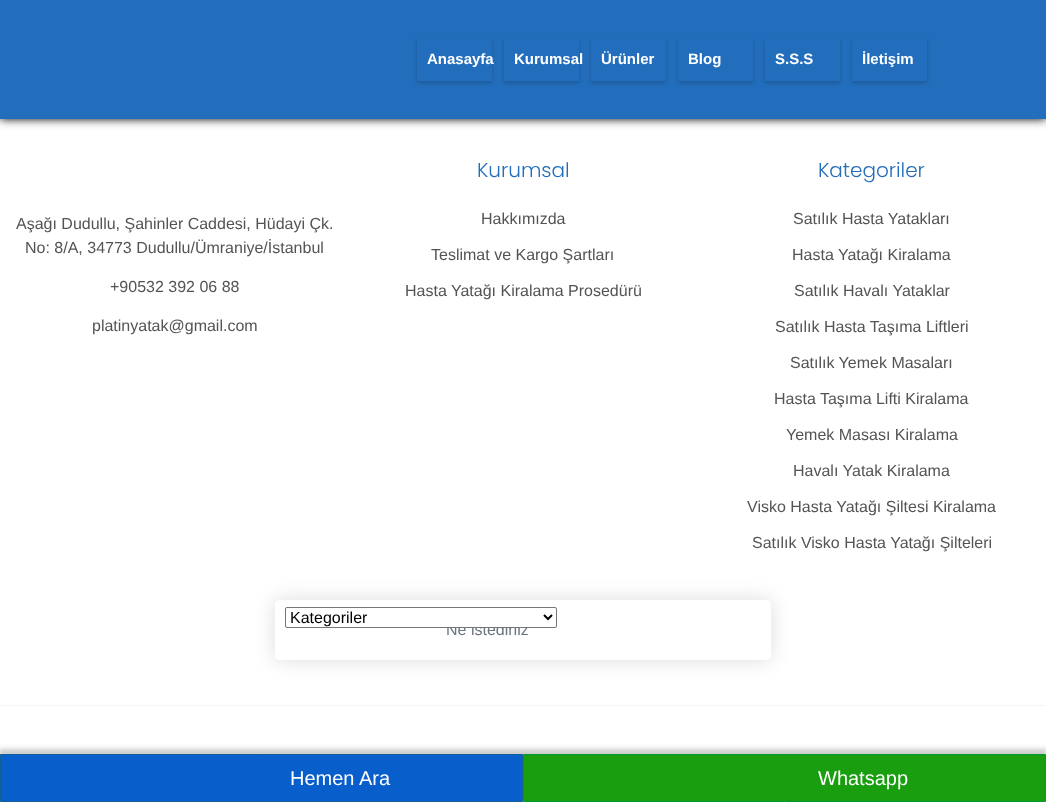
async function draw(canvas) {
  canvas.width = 1046;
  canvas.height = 802;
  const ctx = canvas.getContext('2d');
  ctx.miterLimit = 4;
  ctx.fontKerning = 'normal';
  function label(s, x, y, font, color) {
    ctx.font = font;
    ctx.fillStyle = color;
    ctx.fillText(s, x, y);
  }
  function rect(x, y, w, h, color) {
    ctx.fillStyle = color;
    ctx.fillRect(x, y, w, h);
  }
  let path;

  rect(0, 0, 1046, 802, '#fff');
  ctx.fillStyle = '#000';
  ctx.filter = 'blur(5px)';
  ctx.beginPath();
  ctx.rect(0, 0, 1046, 119);
  ctx.fill();
  ctx.filter = 'none';
  rect(0, 0, 1046, 119, '#236ebc');
  ctx.save();
  path = new Path2D('M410 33H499V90H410ZM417 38H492V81H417Z');
  ctx.clip(path, 'evenodd');
  ctx.fillStyle = '#00000033';
  ctx.filter = 'blur(2px)';
  ctx.beginPath();
  ctx.rect(417, 40, 75, 43);
  ctx.fill();
  ctx.filter = 'none';
  ctx.restore();
  label('Anasayfa', 427, 64, 'bold 15px Liberation Sans', '#fff');
  ctx.save();
  path = new Path2D('M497 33H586V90H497ZM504 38H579V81H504Z');
  ctx.clip(path, 'evenodd');
  ctx.fillStyle = '#00000033';
  ctx.filter = 'blur(2px)';
  ctx.beginPath();
  ctx.rect(504, 40, 75, 43);
  ctx.fill();
  ctx.filter = 'none';
  ctx.restore();
  label('Kurumsal', 514, 64, 'bold 15px Liberation Sans', '#fff');
  ctx.save();
  path = new Path2D('M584 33H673V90H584ZM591 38H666V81H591Z');
  ctx.clip(path, 'evenodd');
  ctx.fillStyle = '#00000033';
  ctx.filter = 'blur(2px)';
  ctx.beginPath();
  ctx.rect(591, 40, 75, 43);
  ctx.fill();
  ctx.filter = 'none';
  ctx.restore();
  label('Ürünler', 601, 64, 'bold 15px Liberation Sans', '#fff');
  ctx.save();
  path = new Path2D('M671 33H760V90H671ZM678 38H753V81H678Z');
  ctx.clip(path, 'evenodd');
  ctx.fillStyle = '#00000033';
  ctx.filter = 'blur(2px)';
  ctx.beginPath();
  ctx.rect(678, 40, 75, 43);
  ctx.fill();
  ctx.filter = 'none';
  ctx.restore();
  label('Blog', 688, 64, 'bold 15px Liberation Sans', '#fff');
  ctx.save();
  path = new Path2D('M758 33H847V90H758ZM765 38H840V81H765Z');
  ctx.clip(path, 'evenodd');
  ctx.fillStyle = '#00000033';
  ctx.filter = 'blur(2px)';
  ctx.beginPath();
  ctx.rect(765, 40, 75, 43);
  ctx.fill();
  ctx.filter = 'none';
  ctx.restore();
  label('S.S.S', 775, 64, 'bold 15px Liberation Sans', '#fff');
  ctx.save();
  path = new Path2D('M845 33H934V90H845ZM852 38H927V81H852Z');
  ctx.clip(path, 'evenodd');
  ctx.fillStyle = '#00000033';
  ctx.filter = 'blur(2px)';
  ctx.beginPath();
  ctx.rect(852, 40, 75, 43);
  ctx.fill();
  ctx.filter = 'none';
  ctx.restore();
  label('İletişim', 862, 64, 'bold 15px Liberation Sans', '#fff');
  label('Aşağı Dudullu, Şahinler Caddesi, Hüdayi Çk.', 16, 229, '16px Liberation Sans', '#545454');
  label('No: 8/A, 34773 Dudullu/Ümraniye/İstanbul', 25, 253, '16px Liberation Sans', '#545454');
  label('+90532 392 06 88', 110, 292, '16px Liberation Sans', '#545454');
  label('platinyatak@gmail.com', 92, 331, '16px Liberation Sans', '#545454');
  label('Kurumsal', 477, 177, '300 20px Poppins', '#236ebc');
  label('Hakkımızda', 481, 224, '16px Liberation Sans', '#545454');
  label('Teslimat ve Kargo Şartları', 431, 260, '16px Liberation Sans', '#545454');
  label('Hasta Yatağı Kiralama Prosedürü', 405, 296, '16px Liberation Sans', '#545454');
  label('Kategoriler', 818, 177, '300 20px Poppins', '#236ebc');
  label('Satılık Hasta Yatakları', 793, 224, '16px Liberation Sans', '#545454');
  label('Hasta Yatağı Kiralama', 792, 260, '16px Liberation Sans', '#545454');
  label('Satılık Havalı Yataklar', 794, 296, '16px Liberation Sans', '#545454');
  label('Satılık Hasta Taşıma Liftleri', 775, 332, '16px Liberation Sans', '#545454');
  label('Satılık Yemek Masaları', 790, 368, '16px Liberation Sans', '#545454');
  label('Hasta Taşıma Lifti Kiralama', 774, 404, '16px Liberation Sans', '#545454');
  label('Yemek Masası Kiralama', 786, 440, '16px Liberation Sans', '#545454');
  label('Havalı Yatak Kiralama', 793, 476, '16px Liberation Sans', '#545454');
  label('Visko Hasta Yatağı Şiltesi Kiralama', 747, 512, '16px Liberation Sans', '#545454');
  label('Satılık Visko Hasta Yatağı Şilteleri', 752, 548, '16px Liberation Sans', '#545454');
  rect(0, 705, 1046, 1, '#f5f5f5');
  ctx.save();
  path = new Path2D('M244 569H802V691H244ZM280 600H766C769 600 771 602 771 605V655C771 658 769 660 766 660H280C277 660 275 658 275 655V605C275 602 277 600 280 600Z');
  ctx.clip(path, 'evenodd');
  ctx.fillStyle = '#dcdcdc';
  ctx.filter = 'blur(10px)';
  ctx.beginPath();
  ctx.roundRect(275, 600, 496, 60, 5);
  ctx.fill();
  ctx.filter = 'none';
  ctx.restore();
  label('Ne istediniz', 446, 635, '16px Liberation Sans', '#6c757d');
  ctx.fillStyle = '#fff';
  ctx.beginPath();
  ctx.roundRect(285.5, 607.5, 271, 20, 1.5);
  ctx.fill();
  ctx.strokeStyle = '#767676';
  ctx.stroke();
  path = new Path2D('M544 615L548 619L552 615');
  ctx.strokeStyle = '#000';
  ctx.lineWidth = 2;
  ctx.stroke(path);
  label('Kategoriler', 290, 623, '16px Liberation Sans', '#000');
  ctx.fillStyle = '#00000033';
  ctx.filter = 'blur(2.5px)';
  ctx.beginPath();
  ctx.rect(-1, 749, 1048, 50);
  ctx.fill();
  ctx.filter = 'none';
  ctx.fillStyle = '#085fcb';
  ctx.beginPath();
  ctx.rect(0.5, 754.5, 522, 47);
  ctx.fill();
  ctx.strokeStyle = '#135e94';
  ctx.lineWidth = 1;
  ctx.stroke();
  label('Hemen Ara', 290, 785, '20px Liberation Sans', '#fff');
  ctx.fillStyle = '#189e0e';
  ctx.beginPath();
  ctx.rect(523.5, 754.5, 522, 47);
  ctx.fill();
  ctx.strokeStyle = '#029834';
  ctx.stroke();
  label('Whatsapp', 818, 785, '20px Liberation Sans', '#fff');
}

draw(document.querySelector('canvas'));
